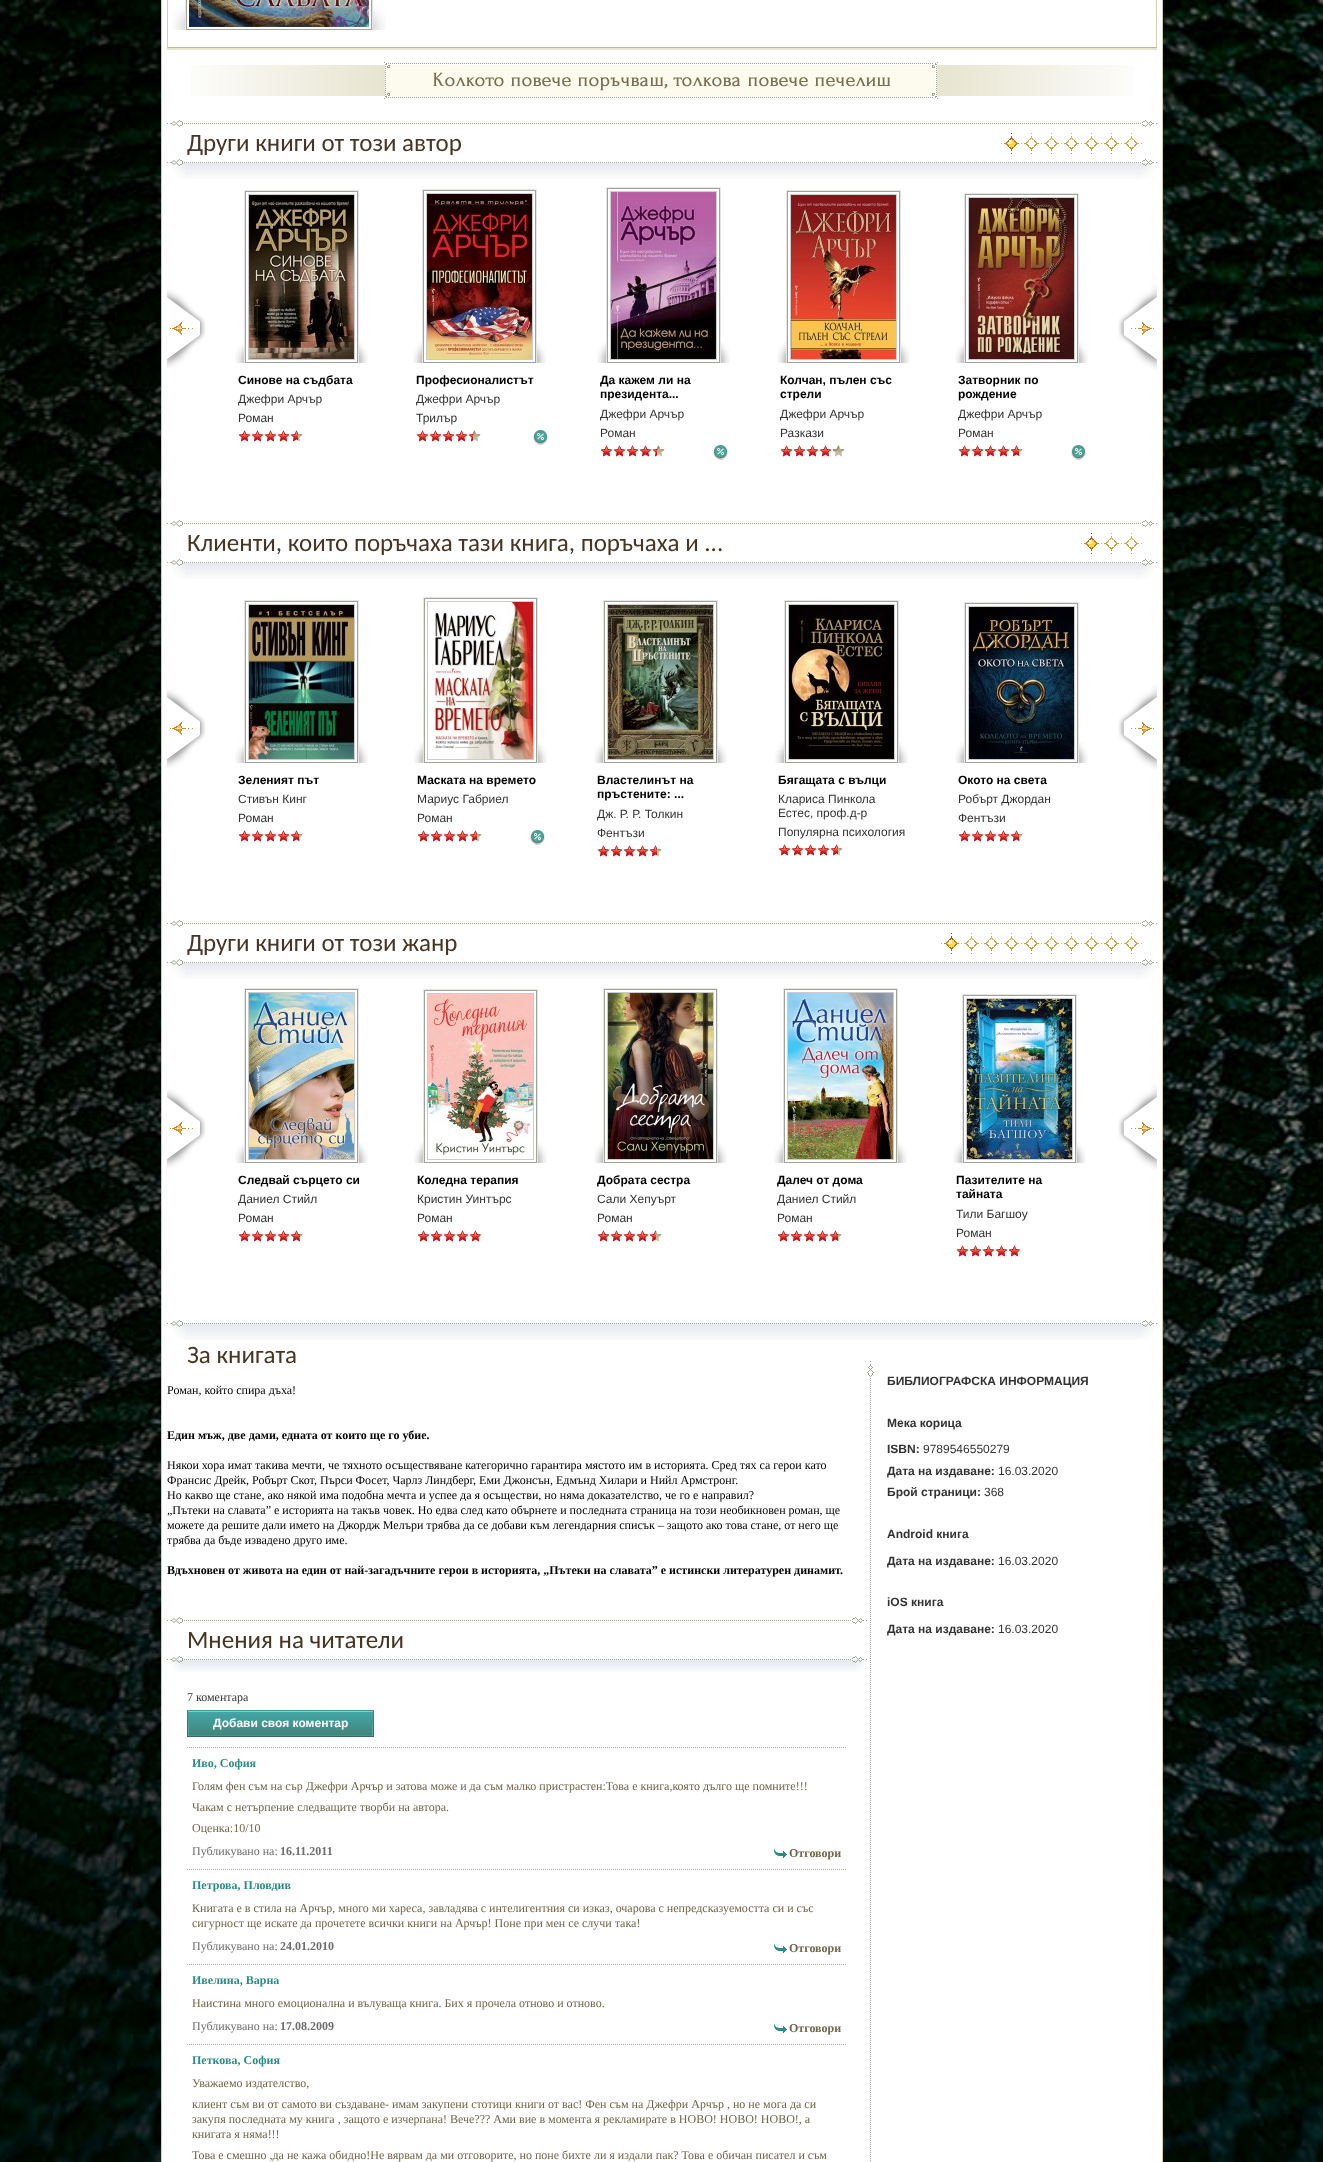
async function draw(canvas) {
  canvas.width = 1323;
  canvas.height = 2162;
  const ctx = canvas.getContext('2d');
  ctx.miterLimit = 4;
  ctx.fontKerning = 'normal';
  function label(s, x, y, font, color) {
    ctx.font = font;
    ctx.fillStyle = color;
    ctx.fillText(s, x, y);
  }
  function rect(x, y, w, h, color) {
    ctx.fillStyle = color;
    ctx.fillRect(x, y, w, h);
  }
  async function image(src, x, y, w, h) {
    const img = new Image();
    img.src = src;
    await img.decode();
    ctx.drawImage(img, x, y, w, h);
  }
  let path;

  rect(0, 0, 1323, 2162, '#fff');
  await image('assets/img1.png', 0, 0, 1323, 2162);
  rect(162, 0, 1000, 2162, '#fff');
  rect(1162, 0, 1, 2162, '#d6ceb4');
  rect(161, 0, 1, 2162, '#d6ceb4');
  rect(167, 48, 990, 2, '#e7e4cf');
  rect(1156, 0, 1, 48, '#d6ceb4');
  rect(167, 47, 990, 1, '#c2bb85');
  rect(167, 0, 1, 48, '#d6ceb4');
  await image('assets/img2.png', 172, 5, 13, 25);
  await image('assets/img3.png', 373, 5, 13, 25);
  rect(372, 0, 1, 30, '#e6e6e6');
  rect(185, 0, 1, 30, '#e6e6e6');
  ctx.strokeStyle = '#9fa699';
  ctx.strokeRect(186.5, -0.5, 185, 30);
  await image('assets/img4.png', 189, 0, 180, 27);
  await image('assets/img5.png', 191, 62, 943, 37);
  await image('assets/img6.png', 167, 120, 16, 7);
  await image('assets/img7.png', 182, 123, 959, 1);
  await image('assets/img8.png', 1142, 120, 15, 7);
  label('Други книги от този автор', 187, 151, '25px Carlito', '#483624');
  await image('assets/img9.png', 1001, 143, 141, 1);
  await image('assets/img10.png', 1004, 133, 15, 21);
  await image('assets/img11.png', 1024, 133, 15, 21);
  await image('assets/img11.png', 1044, 133, 15, 21);
  await image('assets/img11.png', 1064, 133, 15, 21);
  await image('assets/img11.png', 1084, 133, 15, 21);
  await image('assets/img11.png', 1104, 133, 15, 21);
  await image('assets/img11.png', 1124, 133, 15, 21);
  await image('assets/img12.png', 171, 163, 985, 16);
  await image('assets/img13.png', 167, 159, 16, 7);
  await image('assets/img7.png', 182, 162, 959, 1);
  await image('assets/img14.png', 1142, 159, 15, 7);
  await image('assets/img15.png', 167, 289, 39, 79);
  await image('assets/img16.png', 1118, 284, 39, 86);
  await image('assets/img17.png', 235, 343, 9, 20);
  await image('assets/img18.png', 359, 342, 9, 21);
  rect(244, 190, 115, 1, '#e6e6e6');
  rect(358, 190, 1, 173, '#e6e6e6');
  rect(244, 190, 1, 173, '#e6e6e6');
  ctx.strokeRect(245.5, 191.5, 112, 171);
  ctx.strokeStyle = '#ccc';
  ctx.strokeRect(248.5, 194.5, 106, 165);
  await image('assets/img19.png', 249, 195, 105, 164);
  label('Синове на съдбата', 238, 384, 'bold 12px Liberation Sans', '#000');
  label('Джефри Арчър', 238, 403, '12px Liberation Sans', '#333');
  label('Роман', 238, 422, '12px Liberation Sans', '#333');
  await image('assets/img20.png', 298, 433, 5, 9);
  await image('assets/img21.png', 238, 430, 60, 12);
  await image('assets/img22.png', 413, 342, 9, 21);
  await image('assets/img18.png', 537, 342, 9, 21);
  rect(422, 189, 115, 1, '#e6e6e6');
  rect(536, 189, 1, 174, '#e6e6e6');
  rect(422, 189, 1, 174, '#e6e6e6');
  ctx.strokeStyle = '#9fa699';
  ctx.strokeRect(423.5, 190.5, 112, 172);
  ctx.strokeStyle = '#ccc';
  ctx.strokeRect(426.5, 193.5, 106, 166);
  await image('assets/img23.png', 427, 194, 105, 165);
  label('Професионалистът', 416, 384, 'bold 12px Liberation Sans', '#000');
  label('Джефри Арчър', 416, 403, '12px Liberation Sans', '#333');
  label('Трилър', 416, 422, '12px Liberation Sans', '#333');
  await image('assets/img24.png', 473, 430, 8, 12);
  await image('assets/img25.png', 416, 430, 57, 12);
  await image('assets/img26.png', 533, 430, 15, 15);
  await image('assets/img22.png', 597, 342, 9, 21);
  await image('assets/img18.png', 721, 342, 9, 21);
  rect(606, 187, 115, 1, '#e6e6e6');
  rect(720, 187, 1, 176, '#e6e6e6');
  rect(606, 187, 1, 176, '#e6e6e6');
  ctx.strokeStyle = '#9fa699';
  ctx.strokeRect(607.5, 188.5, 112, 174);
  ctx.strokeStyle = '#ccc';
  ctx.strokeRect(610.5, 191.5, 106, 168);
  await image('assets/img27.png', 611, 192, 105, 167);
  label('Да кажем ли на', 600, 384, 'bold 12px Liberation Sans', '#000');
  label('президента...', 600, 398, 'bold 12px Liberation Sans', '#000');
  label('Джефри Арчър', 600, 418, '12px Liberation Sans', '#333');
  label('Роман', 600, 437, '12px Liberation Sans', '#333');
  await image('assets/img24.png', 657, 445, 8, 12);
  await image('assets/img25.png', 600, 445, 57, 12);
  await image('assets/img26.png', 713, 445, 15, 15);
  await image('assets/img22.png', 777, 342, 9, 21);
  await image('assets/img18.png', 901, 342, 9, 21);
  rect(786, 190, 115, 1, '#e6e6e6');
  rect(900, 190, 1, 173, '#e6e6e6');
  rect(786, 190, 1, 173, '#e6e6e6');
  ctx.strokeStyle = '#9fa699';
  ctx.strokeRect(787.5, 191.5, 112, 171);
  ctx.strokeStyle = '#ccc';
  ctx.strokeRect(790.5, 194.5, 106, 165);
  await image('assets/img28.png', 791, 195, 105, 164);
  label('Колчан, пълен със', 780, 384, 'bold 12px Liberation Sans', '#000');
  label('стрели', 780, 398, 'bold 12px Liberation Sans', '#000');
  label('Джефри Арчър', 780, 418, '12px Liberation Sans', '#333');
  label('Разкази', 780, 437, '12px Liberation Sans', '#333');
  await image('assets/img29.png', 834, 445, 11, 12);
  await image('assets/img30.png', 780, 445, 54, 12);
  await image('assets/img22.png', 955, 342, 9, 21);
  await image('assets/img18.png', 1079, 342, 9, 21);
  rect(964, 193, 115, 1, '#e6e6e6');
  rect(1078, 193, 1, 170, '#e6e6e6');
  rect(964, 193, 1, 170, '#e6e6e6');
  ctx.strokeStyle = '#9fa699';
  ctx.strokeRect(965.5, 194.5, 112, 168);
  ctx.strokeStyle = '#ccc';
  ctx.strokeRect(968.5, 197.5, 106, 162);
  await image('assets/img31.png', 969, 198, 105, 161);
  label('Затворник по', 958, 384, 'bold 12px Liberation Sans', '#000');
  label('рождение', 958, 398, 'bold 12px Liberation Sans', '#000');
  label('Джефри Арчър', 958, 418, '12px Liberation Sans', '#333');
  label('Роман', 958, 437, '12px Liberation Sans', '#333');
  await image('assets/img32.png', 1019, 449, 4, 8);
  await image('assets/img33.png', 958, 445, 61, 12);
  await image('assets/img26.png', 1071, 445, 15, 15);
  await image('assets/img6.png', 167, 520, 16, 7);
  await image('assets/img7.png', 182, 523, 959, 1);
  await image('assets/img8.png', 1142, 520, 15, 7);
  label('Клиенти, които поръчаха тази книга, поръчаха и ...', 187, 551, '25px Carlito', '#483624');
  await image('assets/img34.png', 1081, 543, 61, 1);
  await image('assets/img10.png', 1084, 533, 15, 21);
  await image('assets/img11.png', 1104, 533, 15, 21);
  await image('assets/img11.png', 1124, 533, 15, 21);
  await image('assets/img12.png', 171, 563, 985, 16);
  await image('assets/img13.png', 167, 559, 16, 7);
  await image('assets/img7.png', 182, 562, 959, 1);
  await image('assets/img14.png', 1142, 559, 15, 7);
  await image('assets/img15.png', 167, 689, 39, 79);
  await image('assets/img16.png', 1118, 684, 39, 86);
  await image('assets/img17.png', 235, 743, 9, 20);
  await image('assets/img18.png', 359, 742, 9, 21);
  rect(244, 600, 115, 1, '#e6e6e6');
  rect(358, 600, 1, 163, '#e6e6e6');
  rect(244, 600, 1, 163, '#e6e6e6');
  ctx.strokeStyle = '#9fa699';
  ctx.strokeRect(245.5, 601.5, 112, 161);
  ctx.strokeStyle = '#ccc';
  ctx.strokeRect(248.5, 604.5, 106, 155);
  await image('assets/img35.png', 249, 605, 105, 154);
  label('Зеленият път', 238, 784, 'bold 12px Liberation Sans', '#000');
  label('Стивън Кинг', 238, 803, '12px Liberation Sans', '#333');
  label('Роман', 238, 822, '12px Liberation Sans', '#333');
  await image('assets/img32.png', 299, 834, 4, 8);
  await image('assets/img33.png', 238, 830, 61, 12);
  await image('assets/img22.png', 414, 742, 9, 21);
  await image('assets/img18.png', 538, 742, 9, 21);
  rect(423, 597, 115, 1, '#e6e6e6');
  rect(537, 597, 1, 166, '#e6e6e6');
  rect(423, 597, 1, 166, '#e6e6e6');
  ctx.strokeStyle = '#9fa699';
  ctx.strokeRect(424.5, 598.5, 112, 164);
  ctx.strokeStyle = '#ccc';
  ctx.strokeRect(427.5, 601.5, 106, 158);
  await image('assets/img36.png', 428, 602, 105, 157);
  label('Маската на времето', 417, 784, 'bold 12px Liberation Sans', '#000');
  label('Мариус Габриел', 417, 803, '12px Liberation Sans', '#333');
  label('Роман', 417, 822, '12px Liberation Sans', '#333');
  await image('assets/img20.png', 477, 833, 5, 9);
  await image('assets/img21.png', 417, 830, 60, 12);
  await image('assets/img26.png', 530, 830, 15, 15);
  await image('assets/img22.png', 594, 742, 9, 21);
  await image('assets/img18.png', 718, 742, 9, 21);
  rect(603, 600, 115, 1, '#e6e6e6');
  rect(717, 600, 1, 163, '#e6e6e6');
  rect(603, 600, 1, 163, '#e6e6e6');
  ctx.strokeStyle = '#9fa699';
  ctx.strokeRect(604.5, 601.5, 112, 161);
  ctx.strokeStyle = '#ccc';
  ctx.strokeRect(607.5, 604.5, 106, 155);
  await image('assets/img37.png', 608, 605, 105, 154);
  label('Властелинът на', 597, 784, 'bold 12px Liberation Sans', '#000');
  label('пръстените: ...', 597, 798, 'bold 12px Liberation Sans', '#000');
  label('Дж. Р. Р. Толкин', 597, 818, '12px Liberation Sans', '#333');
  label('Фентъзи', 597, 837, '12px Liberation Sans', '#333');
  await image('assets/img20.png', 657, 848, 5, 9);
  await image('assets/img21.png', 597, 845, 60, 12);
  await image('assets/img22.png', 775, 742, 9, 21);
  await image('assets/img18.png', 899, 742, 9, 21);
  rect(784, 600, 115, 1, '#e6e6e6');
  rect(898, 600, 1, 163, '#e6e6e6');
  rect(784, 600, 1, 163, '#e6e6e6');
  ctx.strokeStyle = '#9fa699';
  ctx.strokeRect(785.5, 601.5, 112, 161);
  ctx.strokeStyle = '#ccc';
  ctx.strokeRect(788.5, 604.5, 106, 155);
  await image('assets/img38.png', 789, 605, 105, 154);
  label('Бягащата с вълци', 778, 784, 'bold 12px Liberation Sans', '#000');
  label('Клариса Пинкола', 778, 803, '12px Liberation Sans', '#333');
  label('Естес, проф.д-р', 778, 817, '12px Liberation Sans', '#333');
  label('Популярна психология', 778, 836, '12px Liberation Sans', '#333');
  await image('assets/img20.png', 838, 847, 5, 9);
  await image('assets/img21.png', 778, 844, 60, 12);
  await image('assets/img22.png', 955, 742, 9, 21);
  await image('assets/img18.png', 1079, 742, 9, 21);
  rect(964, 602, 115, 1, '#e6e6e6');
  rect(1078, 602, 1, 161, '#e6e6e6');
  rect(964, 602, 1, 161, '#e6e6e6');
  ctx.strokeStyle = '#9fa699';
  ctx.strokeRect(965.5, 603.5, 112, 159);
  ctx.strokeStyle = '#ccc';
  ctx.strokeRect(968.5, 606.5, 106, 153);
  await image('assets/img39.png', 969, 607, 105, 152);
  label('Окото на света', 958, 784, 'bold 12px Liberation Sans', '#000');
  label('Робърт Джордан', 958, 803, '12px Liberation Sans', '#333');
  label('Фентъзи', 958, 822, '12px Liberation Sans', '#333');
  await image('assets/img32.png', 1019, 834, 4, 8);
  await image('assets/img33.png', 958, 830, 61, 12);
  await image('assets/img6.png', 167, 920, 16, 7);
  await image('assets/img7.png', 182, 923, 959, 1);
  await image('assets/img8.png', 1142, 920, 15, 7);
  label('Други книги от този жанр', 187, 951, '25px Carlito', '#483624');
  await image('assets/img40.png', 941, 943, 201, 1);
  await image('assets/img10.png', 944, 933, 15, 21);
  await image('assets/img11.png', 964, 933, 15, 21);
  await image('assets/img11.png', 984, 933, 15, 21);
  await image('assets/img11.png', 1004, 933, 15, 21);
  await image('assets/img11.png', 1024, 933, 15, 21);
  await image('assets/img11.png', 1044, 933, 15, 21);
  await image('assets/img11.png', 1064, 933, 15, 21);
  await image('assets/img11.png', 1084, 933, 15, 21);
  await image('assets/img11.png', 1104, 933, 15, 21);
  await image('assets/img11.png', 1124, 933, 15, 21);
  await image('assets/img12.png', 171, 963, 985, 16);
  await image('assets/img13.png', 167, 959, 16, 7);
  await image('assets/img7.png', 182, 962, 959, 1);
  await image('assets/img14.png', 1142, 959, 15, 7);
  await image('assets/img15.png', 167, 1089, 39, 79);
  await image('assets/img16.png', 1118, 1084, 39, 86);
  await image('assets/img17.png', 235, 1143, 9, 20);
  await image('assets/img18.png', 359, 1142, 9, 21);
  rect(244, 988, 115, 1, '#e6e6e6');
  rect(358, 988, 1, 175, '#e6e6e6');
  rect(244, 988, 1, 175, '#e6e6e6');
  ctx.strokeStyle = '#9fa699';
  ctx.strokeRect(245.5, 989.5, 112, 173);
  ctx.strokeStyle = '#ccc';
  ctx.strokeRect(248.5, 992.5, 106, 167);
  await image('assets/img41.png', 249, 993, 105, 166);
  label('Следвай сърцето си', 238, 1184, 'bold 12px Liberation Sans', '#000');
  label('Даниел Стийл', 238, 1203, '12px Liberation Sans', '#333');
  label('Роман', 238, 1222, '12px Liberation Sans', '#333');
  await image('assets/img42.png', 300, 1234, 3, 3);
  await image('assets/img43.png', 238, 1230, 62, 12);
  await image('assets/img22.png', 414, 1142, 9, 21);
  await image('assets/img18.png', 538, 1142, 9, 21);
  rect(423, 989, 115, 1, '#e6e6e6');
  rect(537, 989, 1, 174, '#e6e6e6');
  rect(423, 989, 1, 174, '#e6e6e6');
  ctx.strokeStyle = '#9fa699';
  ctx.strokeRect(424.5, 990.5, 112, 172);
  ctx.strokeStyle = '#ccc';
  ctx.strokeRect(427.5, 993.5, 106, 166);
  await image('assets/img44.png', 428, 994, 105, 165);
  label('Коледна терапия', 417, 1184, 'bold 12px Liberation Sans', '#000');
  label('Кристин Уинтърс', 417, 1203, '12px Liberation Sans', '#333');
  label('Роман', 417, 1222, '12px Liberation Sans', '#333');
  await image('assets/img45.png', 480, 1234, 2, 2);
  await image('assets/img46.png', 417, 1230, 63, 12);
  await image('assets/img22.png', 594, 1142, 9, 21);
  await image('assets/img18.png', 718, 1142, 9, 21);
  rect(603, 988, 115, 1, '#e6e6e6');
  rect(717, 988, 1, 175, '#e6e6e6');
  rect(603, 988, 1, 175, '#e6e6e6');
  ctx.strokeStyle = '#9fa699';
  ctx.strokeRect(604.5, 989.5, 112, 173);
  ctx.strokeStyle = '#ccc';
  ctx.strokeRect(607.5, 992.5, 106, 167);
  await image('assets/img47.png', 608, 993, 105, 166);
  label('Добрата сестра', 597, 1184, 'bold 12px Liberation Sans', '#000');
  label('Сали Хепуърт', 597, 1203, '12px Liberation Sans', '#333');
  label('Роман', 597, 1222, '12px Liberation Sans', '#333');
  await image('assets/img48.png', 656, 1231, 6, 11);
  await image('assets/img49.png', 597, 1230, 59, 12);
  await image('assets/img22.png', 774, 1142, 9, 21);
  await image('assets/img18.png', 898, 1142, 9, 21);
  rect(783, 988, 115, 1, '#e6e6e6');
  rect(897, 988, 1, 175, '#e6e6e6');
  rect(783, 988, 1, 175, '#e6e6e6');
  ctx.strokeStyle = '#9fa699';
  ctx.strokeRect(784.5, 989.5, 112, 173);
  ctx.strokeStyle = '#ccc';
  ctx.strokeRect(787.5, 992.5, 106, 167);
  await image('assets/img50.png', 788, 993, 105, 166);
  label('Далеч от дома', 777, 1184, 'bold 12px Liberation Sans', '#000');
  label('Даниел Стийл', 777, 1203, '12px Liberation Sans', '#333');
  label('Роман', 777, 1222, '12px Liberation Sans', '#333');
  await image('assets/img32.png', 838, 1234, 4, 8);
  await image('assets/img33.png', 777, 1230, 61, 12);
  await image('assets/img22.png', 953, 1142, 9, 21);
  await image('assets/img18.png', 1077, 1142, 9, 21);
  rect(962, 994, 115, 1, '#e6e6e6');
  rect(1076, 994, 1, 169, '#e6e6e6');
  rect(962, 994, 1, 169, '#e6e6e6');
  ctx.strokeStyle = '#9fa699';
  ctx.strokeRect(963.5, 995.5, 112, 167);
  ctx.strokeStyle = '#ccc';
  ctx.strokeRect(966.5, 998.5, 106, 161);
  await image('assets/img51.png', 967, 999, 105, 160);
  label('Пазителите на', 956, 1184, 'bold 12px Liberation Sans', '#000');
  label('тайната', 956, 1198, 'bold 12px Liberation Sans', '#000');
  label('Тили Багшоу', 956, 1218, '12px Liberation Sans', '#333');
  label('Роман', 956, 1237, '12px Liberation Sans', '#333');
  await image('assets/img45.png', 1019, 1249, 2, 2);
  await image('assets/img46.png', 956, 1245, 63, 12);
  await image('assets/img12.png', 171, 1324, 985, 16);
  await image('assets/img13.png', 167, 1320, 16, 7);
  await image('assets/img7.png', 182, 1323, 959, 1);
  await image('assets/img14.png', 1142, 1320, 15, 7);
  label('За книгата', 187, 1363, '25px Carlito', '#483624');
  label('Роман, който спира дъха!', 167, 1394, '12px Liberation Serif', '#000');
  label('Един мъж, две дами, едната от които ще го убие.', 167, 1439, 'bold 12px Liberation Serif', '#000');
  label('Някои хора имат такива мечти, че тяхното осъществяване категорично гарантира мястото им в историята. Сред тях са герои като', 167, 1469, '12px Liberation Serif', '#000');
  label('Франсис Дрейк, Робърт Скот, Пърси Фосет, Чарлз Линдберг, Еми Джонсън, Едмънд Хилари и Нийл Армстронг.', 167, 1484, '12px Liberation Serif', '#000');
  label('Но какво ще стане, ако някой има подобна мечта и успее да я осъществи, но няма доказателство, че го е направил?', 167, 1499, '12px Liberation Serif', '#000');
  label('„Пътеки на славата” е историята на такъв човек. Но едва след като обърнете и последната страница на този необикновен роман, ще', 167, 1514, '12px Liberation Serif', '#000');
  label('можете да решите дали името на Джордж Мелъри трябва да се добави към легендарния списък – защото ако това стане, от него ще', 167, 1529, '12px Liberation Serif', '#000');
  label('трябва да бъде извадено друго име.', 167, 1544, '12px Liberation Serif', '#000');
  label('Вдъхновен от живота на един от най-загадъчните герои в историята, „Пътеки на славата” е истински литературен динамит.', 167, 1574, 'bold 12px Liberation Serif', '#000');
  await image('assets/img6.png', 167, 1617, 16, 7);
  await image('assets/img52.png', 182, 1620, 669, 1);
  await image('assets/img8.png', 852, 1617, 15, 7);
  label('Мнения на читатели', 187, 1648, '25px Carlito', '#483624');
  await image('assets/img53.png', 170, 1660, 697, 12);
  await image('assets/img54.png', 167, 1656, 16, 7);
  await image('assets/img52.png', 182, 1659, 669, 1);
  await image('assets/img55.png', 852, 1656, 15, 7);
  label('7 коментара', 187, 1701, '12px Liberation Serif', '#333');
  await image('assets/img56.png', 189, 1710, 183, 27);
  await image('assets/img57.png', 187, 1710, 2, 27);
  label('Добави своя коментар', 213, 1727, 'bold 12px Liberation Sans', '#fff');
  await image('assets/img58.png', 372, 1710, 2, 27);
  path = new Path2D('M187 1747.5H847');
  ctx.strokeStyle = '#aaa';
  ctx.setLineDash([1, 1]);
  ctx.stroke(path);
  label('Иво, София', 192, 1767, 'bold 12px Liberation Serif', '#2c8d84');
  label('Голям фен съм на сър Джефри Арчър и затова може и да съм малко пристрастен:Това е книга,която дълго ще помните!!!', 192, 1790, '12px Liberation Serif', '#70664b');
  label('Чакам с нетърпение следващите творби на автора.', 192, 1811, '12px Liberation Serif', '#70664b');
  label('Оценка:10/10', 192, 1832, '12px Liberation Serif', '#70664b');
  label('Публикувано на:', 192, 1855, '12px Liberation Serif', '#6e6e6e');
  label('16.11.2011', 280, 1855, 'bold 12px Liberation Serif', '#6e6e6e');
  await image('assets/img59.png', 774, 1848, 13, 10);
  label('Отговори', 789, 1857, 'bold 12px Liberation Serif', '#70664b');
  path = new Path2D('M187 1869.5H847');
  ctx.stroke(path);
  label('Петрова, Пловдив', 192, 1889, 'bold 12px Liberation Serif', '#2c8d84');
  label('Книгата е в стила на Арчър, много ми хареса, завладява с интелигентния си изказ, очарова с непредсказуемостта си и със', 192, 1912, '12px Liberation Serif', '#70664b');
  label('сигурност ще искате да прочетете всички книги на Арчър! Поне при мен се случи така!', 192, 1927, '12px Liberation Serif', '#70664b');
  label('Публикувано на:', 192, 1950, '12px Liberation Serif', '#6e6e6e');
  label('24.01.2010', 280, 1950, 'bold 12px Liberation Serif', '#6e6e6e');
  await image('assets/img59.png', 774, 1943, 13, 10);
  label('Отговори', 789, 1952, 'bold 12px Liberation Serif', '#70664b');
  path = new Path2D('M187 1964.5H847');
  ctx.stroke(path);
  label('Ивелина, Варна', 192, 1984, 'bold 12px Liberation Serif', '#2c8d84');
  label('Наистина много емоционална и вълуваща книга. Бих я прочела отново и отново.', 192, 2007, '12px Liberation Serif', '#70664b');
  label('Публикувано на:', 192, 2030, '12px Liberation Serif', '#6e6e6e');
  label('17.08.2009', 280, 2030, 'bold 12px Liberation Serif', '#6e6e6e');
  await image('assets/img59.png', 774, 2023, 13, 10);
  label('Отговори', 789, 2032, 'bold 12px Liberation Serif', '#70664b');
  path = new Path2D('M187 2044.5H847');
  ctx.stroke(path);
  label('Петкова, София', 192, 2064, 'bold 12px Liberation Serif', '#2c8d84');
  label('Уважаемо издателство,', 192, 2087, '12px Liberation Serif', '#70664b');
  label('клиент съм ви от самото ви създаване- имам закупени стотици книги от вас! Фен съм на Джефри Арчър , но не мога да си', 192, 2108, '12px Liberation Serif', '#70664b');
  label('закупя последната му книга , защото е изчерпана! Вече??? Ами вие в момента я рекламирате в НОВО! НОВО! НОВО!, а', 192, 2123, '12px Liberation Serif', '#70664b');
  label('книгата я няма!!!', 192, 2138, '12px Liberation Serif', '#70664b');
  label('Това е смешно ,да не кажа обидно!Не вярвам да ми отговорите, но поне бихте ли я издали пак? Това е обичан писател и съм', 192, 2159, '12px Liberation Serif', '#70664b');
  await image('assets/img60.png', 867, 1361, 7, 15);
  await image('assets/img61.png', 870, 1376, 1, 785);
  label('БИБЛИОГРАФСКА ИНФОРМАЦИЯ', 887, 1385, 'bold 12px Liberation Sans', '#333');
  label('Мека корица', 887, 1427, 'bold 12px Liberation Sans', '#333');
  label('ISBN:', 887, 1453, 'bold 12px Liberation Sans', '#333');
  label('9789546550279', 923, 1453, '12px Liberation Sans', '#333');
  label('Дата на издаване:', 887, 1475, 'bold 12px Liberation Sans', '#333');
  label('16.03.2020', 998, 1475, '12px Liberation Sans', '#333');
  label('Брой страници:', 887, 1496, 'bold 12px Liberation Sans', '#333');
  label('368', 984, 1496, '12px Liberation Sans', '#333');
  label('Android книга', 887, 1538, 'bold 12px Liberation Sans', '#333');
  label('Дата на издаване:', 887, 1565, 'bold 12px Liberation Sans', '#333');
  label('16.03.2020', 998, 1565, '12px Liberation Sans', '#333');
  label('iOS книга', 887, 1606, 'bold 12px Liberation Sans', '#333');
  label('Дата на издаване:', 887, 1633, 'bold 12px Liberation Sans', '#333');
  label('16.03.2020', 998, 1633, '12px Liberation Sans', '#333');
}

draw(document.querySelector('canvas'));
